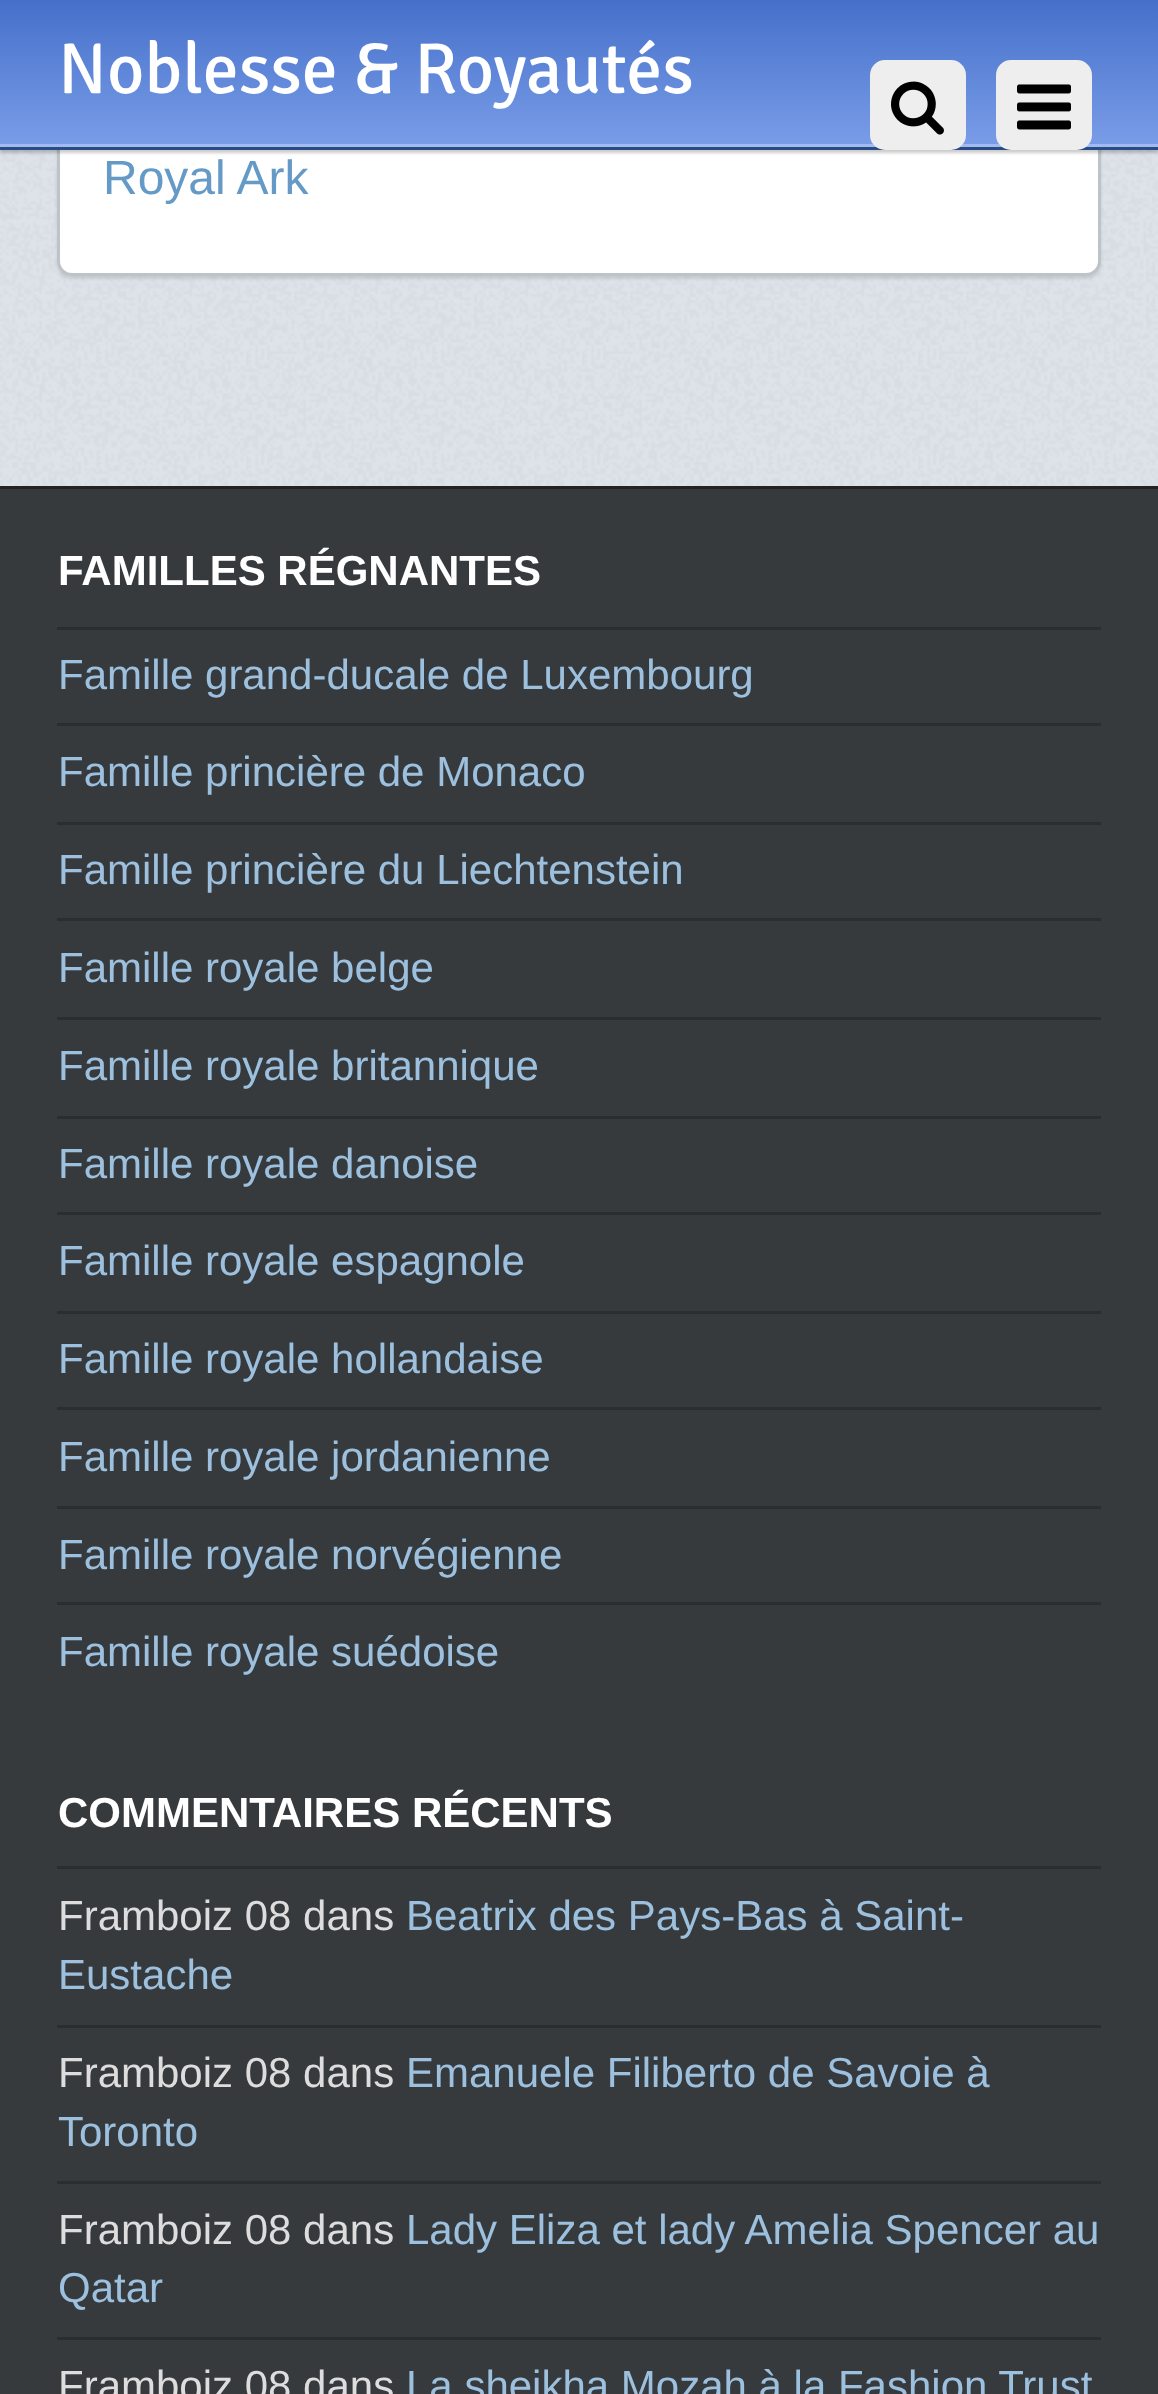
async function draw(canvas) {
  canvas.width = 1158;
  canvas.height = 2394;
  const ctx = canvas.getContext('2d');
  ctx.miterLimit = 4;
  ctx.fontKerning = 'normal';
  function label(s, x, y, font, color) {
    ctx.font = font;
    ctx.fillStyle = color;
    ctx.fillText(s, x, y);
  }
  function rect(x, y, w, h, color) {
    ctx.fillStyle = color;
    ctx.fillRect(x, y, w, h);
  }
  function roundedRect(x, y, w, h, r, color) {
    ctx.fillStyle = color;
    ctx.beginPath();
    ctx.roundRect(x, y, w, h, r);
    ctx.fill();
  }
  async function image(src, x, y, w, h) {
    const img = new Image();
    img.src = src;
    await img.decode();
    ctx.drawImage(img, x, y, w, h);
  }
  let gradient;

  rect(0, 0, 1158, 2394, '#dee4ea');
  await image('assets/img1.png', 0, 150, 1158, 336);
  ctx.fillStyle = '#0000001a';
  ctx.filter = 'blur(1.5px)';
  ctx.beginPath();
  ctx.roundRect(57, -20, 1044, 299, 15);
  ctx.fill();
  ctx.filter = 'none';
  ctx.fillStyle = '#fff';
  ctx.beginPath();
  ctx.roundRect(58.5, -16.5, 1041, 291, 13.5);
  ctx.fill();
  ctx.strokeStyle = '#bec3c7';
  ctx.lineWidth = 3;
  ctx.stroke();
  ctx.fillStyle = '#00000033';
  ctx.filter = 'blur(1.5px)';
  ctx.beginPath();
  ctx.rect(0, 3, 1158, 150);
  ctx.fill();
  ctx.filter = 'none';
  gradient = ctx.createLinearGradient(579, 147, 579, 0);
  gradient.addColorStop(0, '#7a9de8');
  gradient.addColorStop(1, '#4570ca');
  ctx.fillStyle = gradient;
  ctx.fillRect(0, 0, 1158, 144);
  rect(0, 144, 1158, 3, '#a1baef');
  rect(0, 147, 1158, 3, '#294c89');
  label('Noblesse & Royautés', 58, 93, '72px Signika', '#fff');
  roundedRect(870, 60, 96, 90, 15, '#eee');
  await image('assets/img2.png', 891, 81, 53, 54);
  roundedRect(996, 60, 96, 90, 15, '#eee');
  await image('assets/img3.png', 1017, 84, 54, 46);
  label('Royal Ark', 103, 194, '48px Liberation Sans', '#6599c6');
  rect(0, 489, 1158, 1905, '#363a3d');
  rect(0, 486, 1158, 3, '#232323');
  label('FAMILLES RÉGNANTES', 58, 585, 'bold 42px Liberation Sans', '#fff');
  rect(57, 627, 1044, 3, '#2b2e31');
  label('Famille grand-ducale de Luxembourg', 58, 689, '42px Liberation Sans', '#9cc0de');
  rect(57, 723, 1044, 3, '#2b2e31');
  label('Famille princière de Monaco', 58, 786, '42px Liberation Sans', '#9cc0de');
  rect(57, 822, 1044, 3, '#2b2e31');
  label('Famille princière du Liechtenstein', 58, 884, '42px Liberation Sans', '#9cc0de');
  rect(57, 918, 1044, 3, '#2b2e31');
  label('Famille royale belge', 58, 982, '42px Liberation Sans', '#9cc0de');
  rect(57, 1017, 1044, 3, '#2b2e31');
  label('Famille royale britannique', 58, 1080, '42px Liberation Sans', '#9cc0de');
  rect(57, 1116, 1044, 3, '#2b2e31');
  label('Famille royale danoise', 58, 1178, '42px Liberation Sans', '#9cc0de');
  rect(57, 1212, 1044, 3, '#2b2e31');
  label('Famille royale espagnole', 58, 1275, '42px Liberation Sans', '#9cc0de');
  rect(57, 1311, 1044, 3, '#2b2e31');
  label('Famille royale hollandaise', 58, 1373, '42px Liberation Sans', '#9cc0de');
  rect(57, 1407, 1044, 3, '#2b2e31');
  label('Famille royale jordanienne', 58, 1471, '42px Liberation Sans', '#9cc0de');
  rect(57, 1506, 1044, 3, '#2b2e31');
  label('Famille royale norvégienne', 58, 1569, '42px Liberation Sans', '#9cc0de');
  rect(57, 1602, 1044, 3, '#2b2e31');
  label('Famille royale suédoise', 58, 1666, '42px Liberation Sans', '#9cc0de');
  label('COMMENTAIRES RÉCENTS', 58, 1827, 'bold 42px Liberation Sans', '#fff');
  rect(57, 1866, 1044, 3, '#2b2e31');
  label('Framboiz 08 dans', 58, 1930, '42px Liberation Sans', '#ddd');
  label('Beatrix des Pays-Bas à Saint-', 406, 1930, '42px Liberation Sans', '#9cc0de');
  label('Eustache', 58, 1989, '42px Liberation Sans', '#9cc0de');
  rect(57, 2025, 1044, 3, '#2b2e31');
  label('Framboiz 08 dans', 58, 2087, '42px Liberation Sans', '#ddd');
  label('Emanuele Filiberto de Savoie à', 406, 2087, '42px Liberation Sans', '#9cc0de');
  label('Toronto', 58, 2146, '42px Liberation Sans', '#9cc0de');
  rect(57, 2181, 1044, 3, '#2b2e31');
  label('Framboiz 08 dans', 58, 2244, '42px Liberation Sans', '#ddd');
  label('Lady Eliza et lady Amelia Spencer au', 406, 2244, '42px Liberation Sans', '#9cc0de');
  label('Qatar', 58, 2302, '42px Liberation Sans', '#9cc0de');
  rect(57, 2337, 1044, 3, '#2b2e31');
  label('Framboiz 08 dans', 58, 2400, '42px Liberation Sans', '#ddd');
  label('La sheikha Mozah à la Fashion Trust', 406, 2400, '42px Liberation Sans', '#9cc0de');
}

draw(document.querySelector('canvas'));
